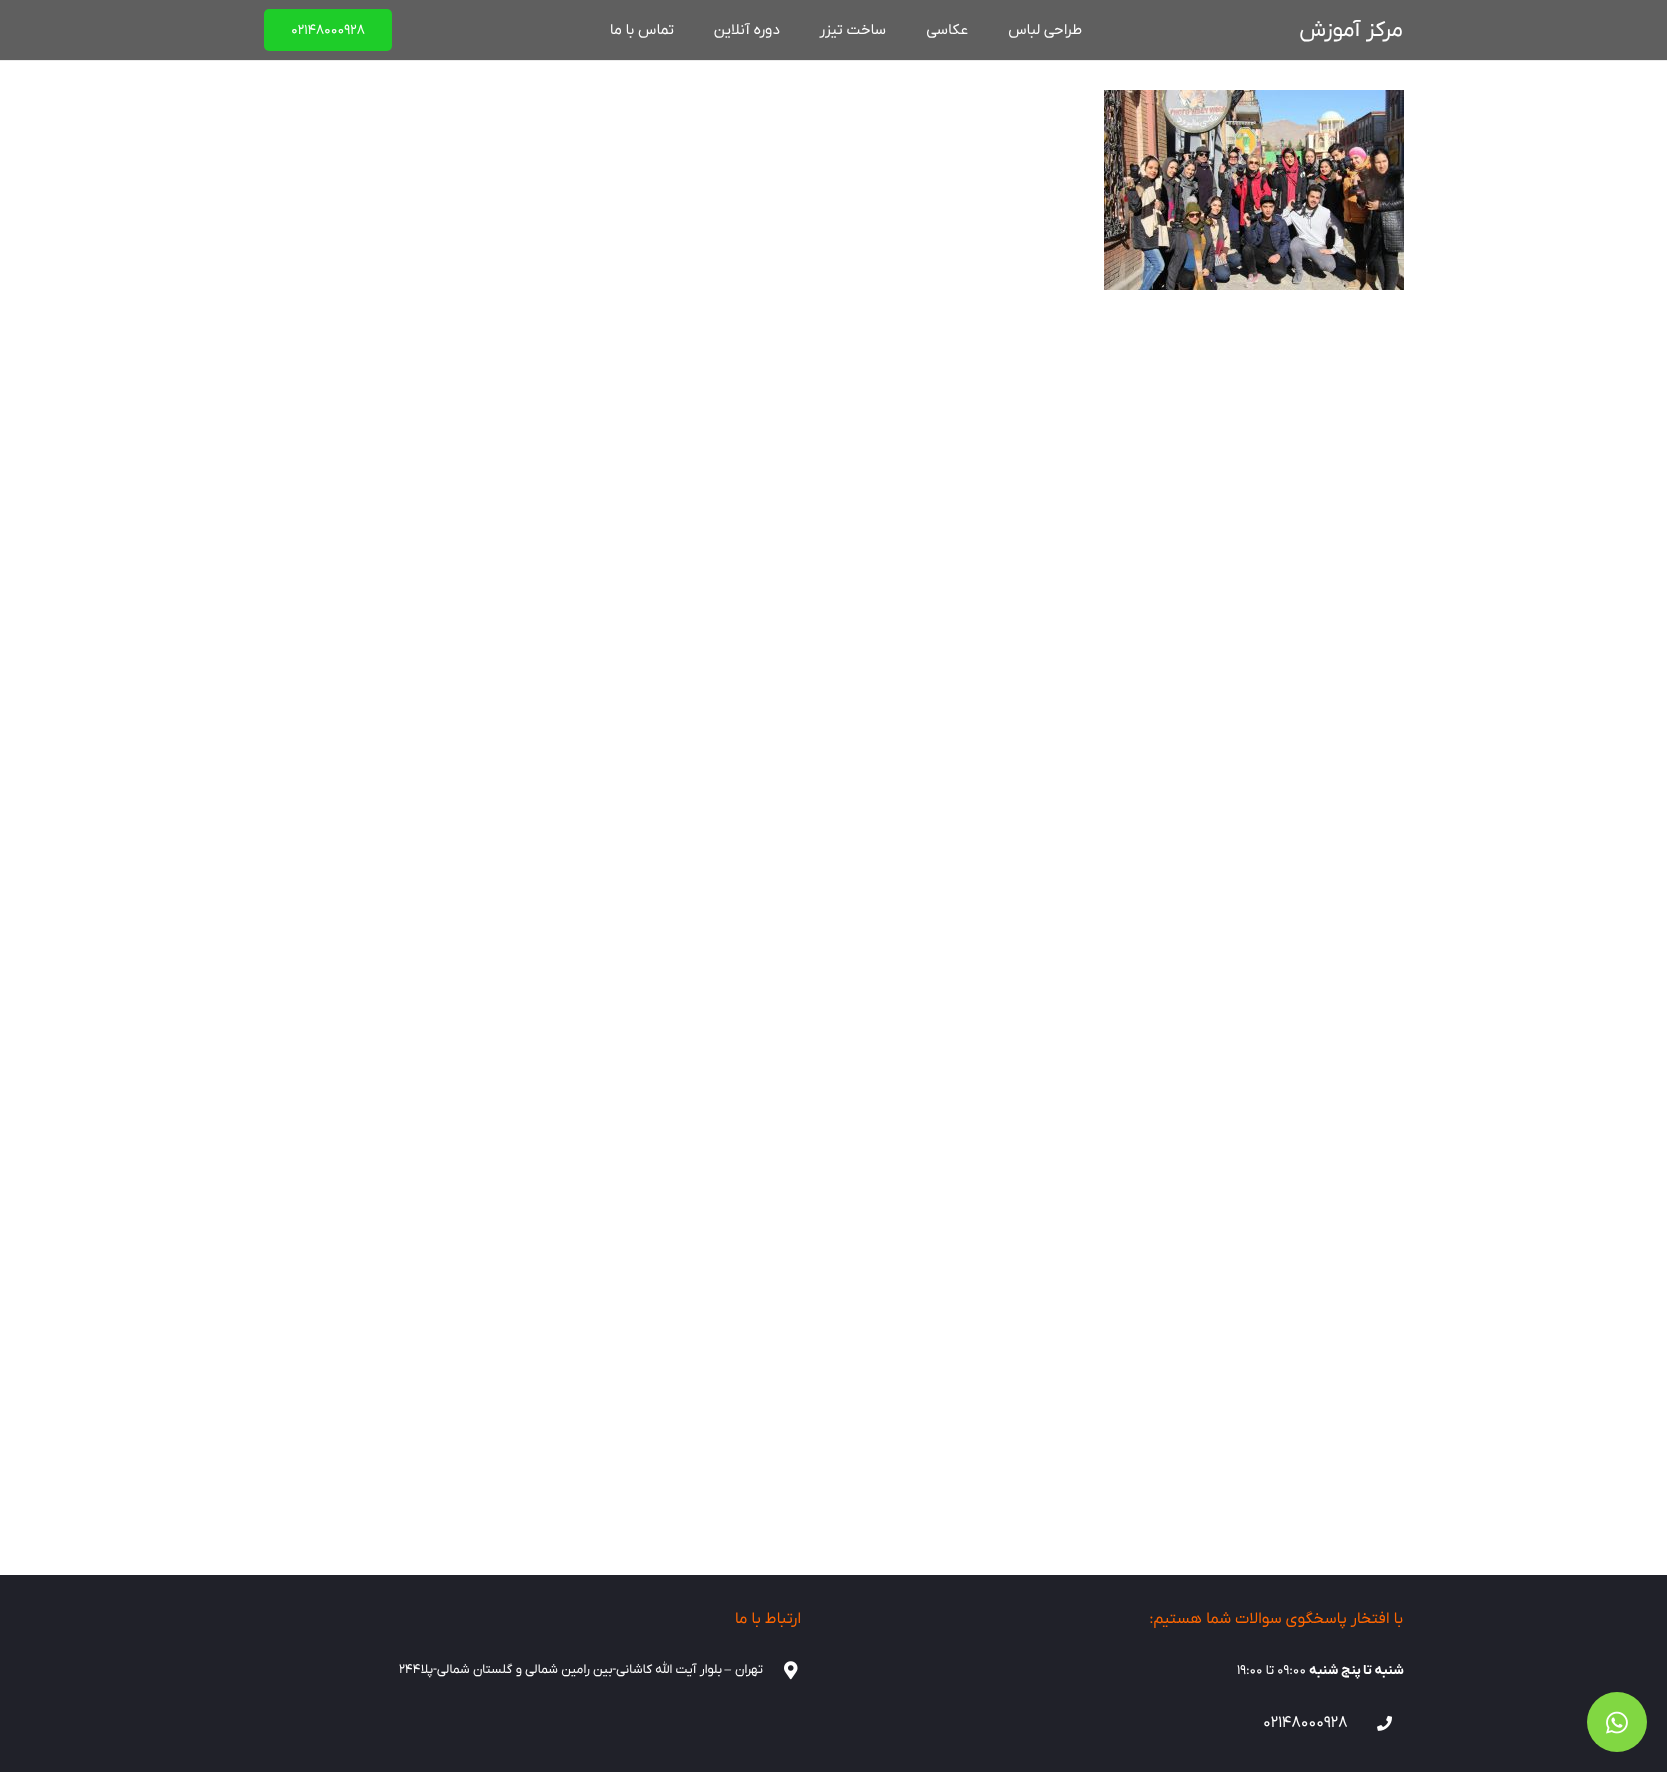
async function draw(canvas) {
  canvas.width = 1667;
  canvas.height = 1772;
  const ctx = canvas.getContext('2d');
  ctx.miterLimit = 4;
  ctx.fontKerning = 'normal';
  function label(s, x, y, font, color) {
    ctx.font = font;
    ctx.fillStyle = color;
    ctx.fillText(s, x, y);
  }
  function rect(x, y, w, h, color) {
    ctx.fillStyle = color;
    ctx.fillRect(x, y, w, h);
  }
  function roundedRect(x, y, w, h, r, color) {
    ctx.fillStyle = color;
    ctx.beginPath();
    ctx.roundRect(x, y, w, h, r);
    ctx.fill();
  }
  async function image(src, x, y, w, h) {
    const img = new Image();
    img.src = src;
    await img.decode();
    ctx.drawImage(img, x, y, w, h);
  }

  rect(0, 0, 1667, 1772, '#fff');
  rect(0, 60, 1667, 1, '#ebebeb');
  rect(0, 0, 1667, 60, '#5f5f5f');
  ctx.direction = 'rtl';
  label('مرکز آموزش', 1403, 36, '22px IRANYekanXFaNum', '#fff');
  label('طراحی لباس', 1082, 34, '15px IRANYekanXFaNum', '#fff');
  label('عکاسی', 968, 34, '15px IRANYekanXFaNum', '#fff');
  label('ساخت تیزر', 886, 34, '15px IRANYekanXFaNum', '#fff');
  label('دوره آنلاین', 780, 34, '15px IRANYekanXFaNum', '#fff');
  label('تماس با ما', 674, 34, '15px IRANYekanXFaNum', '#fff');
  roundedRect(264, 9, 128, 42, 5, '#1ecd29');
  ctx.direction = 'ltr';
  label('02148000928', 291, 34, '14px IRANYekanXFaNum', '#fff');
  await image('assets/img1.png', 1104, 90, 300, 200);
  rect(0, 1575, 1667, 197, '#202129');
  ctx.fillStyle = '#81d742';
  ctx.beginPath();
  ctx.arc(1617, 1722, 30, 0, 2 * Math.PI);
  ctx.fill();
  await image('assets/img2.png', 1606, 1711, 22, 23);
  ctx.direction = 'rtl';
  label('با افتخار پاسخگوی سوالات شما هستیم:', 1403, 1623, '16px IRANYekanXFaNum', '#f60');
  label('شنبه تا', 1404, 1674, 'bold 13.5px IRANYekanXFaNum', '#fff');
  label('پنج شنبه', 1361, 1674, 'bold 13.5px IRANYekanXFaNum', '#fff');
  ctx.direction = 'ltr';
  label('۰۹:۰۰', 1277, 1674, '13.5px IRANYekanXFaNum', '#fff');
  ctx.direction = 'rtl';
  label('تا', 1274, 1674, '13.5px IRANYekanXFaNum', '#fff');
  ctx.direction = 'ltr';
  label('۱۹:۰۰', 1237, 1674, '13.5px IRANYekanXFaNum', '#fff');
  await image('assets/img3.png', 1377, 1715, 15, 16);
  label('02148000928', 1263, 1727, '16px IRANYekanXFaNum', '#fff');
  ctx.direction = 'rtl';
  label('ارتباط با ما', 801, 1623, '16px IRANYekanXFaNum', '#f60');
  await image('assets/img4.png', 784, 1661, 14, 19);
  label('تهران', 763, 1673, '13px IRANYekanXFaNum', '#fff');
  label('–', 731, 1673, '13px Liberation Serif', '#fff');
  label('بلوار آیت الله کاشانی-بین رامین شمالی و گلستان شمالی-پلا', 722, 1673, '13px IRANYekanXFaNum', '#fff');
  ctx.direction = 'ltr';
  label('244', 399, 1673, '13px IRANYekanXFaNum', '#fff');
}

draw(document.querySelector('canvas'));
